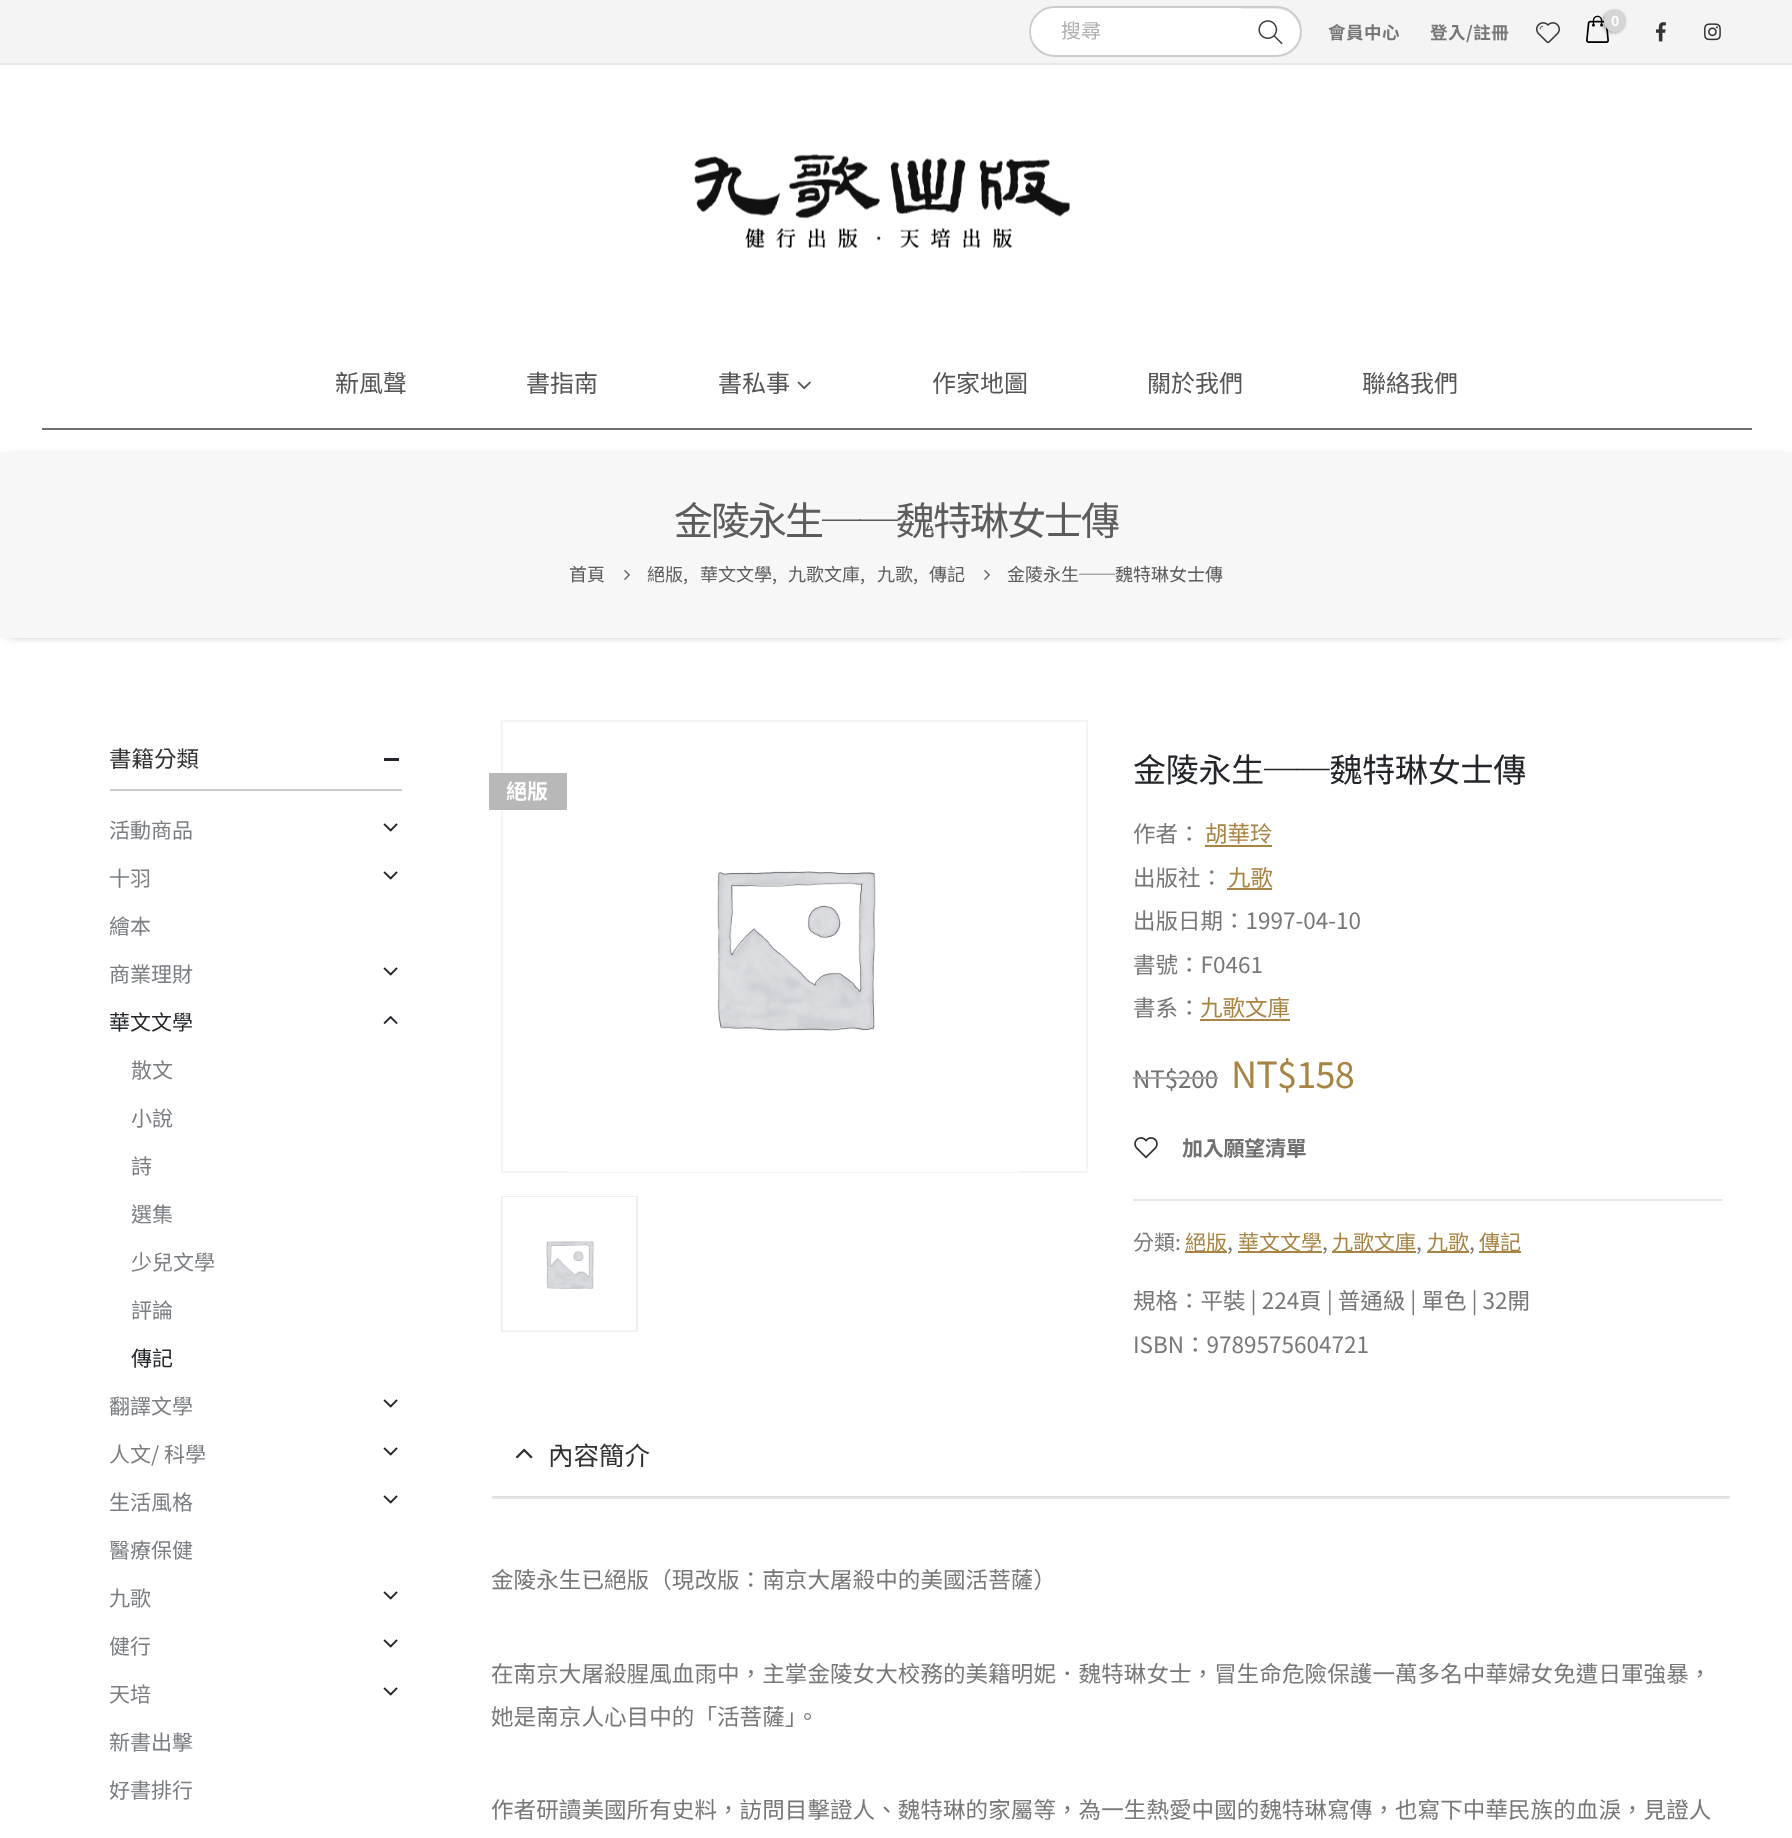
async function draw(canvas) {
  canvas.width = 1792;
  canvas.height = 1838;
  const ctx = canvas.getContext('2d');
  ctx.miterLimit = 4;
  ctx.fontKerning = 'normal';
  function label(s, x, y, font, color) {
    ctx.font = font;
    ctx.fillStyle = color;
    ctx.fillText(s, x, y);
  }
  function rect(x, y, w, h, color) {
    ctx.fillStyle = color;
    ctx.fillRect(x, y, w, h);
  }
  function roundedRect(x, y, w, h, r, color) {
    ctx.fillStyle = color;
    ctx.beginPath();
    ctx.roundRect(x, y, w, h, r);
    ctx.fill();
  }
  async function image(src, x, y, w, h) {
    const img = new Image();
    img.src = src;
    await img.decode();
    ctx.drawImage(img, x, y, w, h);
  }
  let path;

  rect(0, 0, 1792, 1838, '#fff');
  rect(0, 0, 1792, 63, '#f4f4f4');
  rect(0, 63, 1792, 2, '#e7e7e7');
  roundedRect(1029, 6, 273, 51, 25.5, '#fff');
  ctx.fillStyle = '#ececec';
  path = new Path2D('M1054 9H1276C1290 9 1300 20 1300 33C1300 39 1298 44 1295 48C1299 44 1301 38 1301 32C1301 19 1290 8 1277 8H1055C1047 8 1040 12 1036 17C1040 12 1047 9 1054 9Z');
  ctx.fill(path);
  ctx.beginPath();
  ctx.roundRect(1030, 7, 271, 49, 24.5);
  ctx.strokeStyle = '#ccc';
  ctx.lineWidth = 2;
  ctx.stroke();
  ctx.save();
  ctx.beginPath();
  ctx.roundRect(1031, 8, 270, 48, 24);
  ctx.clip();
  ctx.fillStyle = '#fff';
  ctx.beginPath();
  ctx.roundRect(1031, 8, 210, 45, [24, 0, 0, 22.5]);
  ctx.fill();
  ctx.restore();
  label('搜尋', 1061, 38, '20px Noto Sans TC', '#afafaf');
  await image('assets/img1.png', 1258, 20, 25, 25);
  ctx.letterSpacing = '0.5px';
  label('會員中心', 1328, 39, 'bold 17.5px Noto Sans TC', '#777');
  label('登入/註冊', 1430, 39, 'bold 17.5px Noto Sans TC', '#777');
  await image('assets/img2.png', 1536, 22, 24, 22);
  await image('assets/img3.png', 1586, 15, 23, 28);
  ctx.fillStyle = '#0000004d';
  ctx.filter = 'blur(1.5px)';
  ctx.beginPath();
  ctx.roundRect(1602, 11, 23, 22, 11);
  ctx.fill();
  ctx.filter = 'none';
  roundedRect(1604, 9, 22, 23, 11, '#d5d5d5');
  ctx.letterSpacing = '0px';
  label('0', 1611, 26, 'bold 14px Noto Sans TC', '#fff');
  await image('assets/img4.png', 1656, 22, 10, 20);
  await image('assets/img5.png', 1704, 23, 17, 18);
  await image('assets/img6.png', 694, 154, 376, 94);
  rect(42, 428, 1710, 2, '#707070');
  label('新風聲', 335, 392, '24px Noto Sans TC', '#555');
  label('書指南', 526, 392, '24px Noto Sans TC', '#555');
  label('書私事', 718, 392, '24px Noto Sans TC', '#555');
  await image('assets/img7.png', 797, 381, 14, 9);
  label('作家地圖', 932, 392, '24px Noto Sans TC', '#555');
  label('關於我們', 1147, 392, '24px Noto Sans TC', '#555');
  label('聯絡我們', 1362, 392, '24px Noto Sans TC', '#555');
  ctx.fillStyle = '#000000bf';
  ctx.filter = 'blur(6px)';
  ctx.beginPath();
  ctx.rect(8, 461, 1777, 171);
  ctx.fill();
  ctx.filter = 'none';
  rect(0, 452, 1792, 186, '#f7f7f7');
  ctx.letterSpacing = '-2px';
  label('金陵永生──魏特琳女士傳', 674, 535, '39px Noto Sans TC', '#5c5c5c');
  ctx.letterSpacing = '0px';
  label('首頁', 569, 581, '18px Noto Sans TC', '#5c5c5c');
  await image('assets/img8.png', 624, 570, 6, 10);
  label('絕版,', 647, 581, '18px Noto Sans TC', '#5c5c5c');
  label('華文文學,', 700, 581, '18px Noto Sans TC', '#5c5c5c');
  label('九歌文庫,', 788, 581, '18px Noto Sans TC', '#5c5c5c');
  label('九歌,', 877, 581, '18px Noto Sans TC', '#5c5c5c');
  label('傳記', 929, 581, '18px Noto Sans TC', '#5c5c5c');
  await image('assets/img8.png', 984, 570, 6, 10);
  label('金陵永生──魏特琳女士傳', 1007, 581, '18px Noto Sans TC', '#5c5c5c');
  rect(110, 789, 292, 2, '#ccc');
  label('書籍分類', 109, 767, '22.5px Noto Sans TC', '#313131');
  rect(384, 758, 15, 3, '#222529');
  label('活動商品', 109, 838, '21px Noto Sans TC', '#7a7d82');
  await image('assets/img9.png', 383, 823, 15, 9);
  label('十羽', 109, 886, '21px Noto Sans TC', '#7a7d82');
  await image('assets/img9.png', 383, 871, 15, 9);
  label('繪本', 109, 934, '21px Noto Sans TC', '#7a7d82');
  label('商業理財', 109, 982, '21px Noto Sans TC', '#7a7d82');
  await image('assets/img9.png', 383, 967, 15, 9);
  label('華文文學', 109, 1030, '21px Noto Sans TC', '#222529');
  await image('assets/img10.png', 383, 1015, 15, 9);
  label('散文', 131, 1078, '21px Noto Sans TC', '#7a7d82');
  label('小說', 131, 1126, '21px Noto Sans TC', '#7a7d82');
  label('詩', 131, 1174, '21px Noto Sans TC', '#7a7d82');
  label('選集', 131, 1222, '21px Noto Sans TC', '#7a7d82');
  label('少兒文學', 131, 1270, '21px Noto Sans TC', '#7a7d82');
  label('評論', 131, 1318, '21px Noto Sans TC', '#7a7d82');
  label('傳記', 131, 1366, '21px Noto Sans TC', '#222529');
  label('翻譯文學', 109, 1414, '21px Noto Sans TC', '#7a7d82');
  await image('assets/img9.png', 383, 1399, 15, 9);
  label('人文/ 科學', 109, 1462, '21px Noto Sans TC', '#7a7d82');
  await image('assets/img9.png', 383, 1447, 15, 9);
  label('生活風格', 109, 1510, '21px Noto Sans TC', '#7a7d82');
  await image('assets/img9.png', 383, 1495, 15, 9);
  label('醫療保健', 109, 1558, '21px Noto Sans TC', '#7a7d82');
  label('九歌', 109, 1606, '21px Noto Sans TC', '#7a7d82');
  await image('assets/img9.png', 383, 1591, 15, 9);
  label('健行', 109, 1654, '21px Noto Sans TC', '#7a7d82');
  await image('assets/img9.png', 383, 1639, 15, 9);
  label('天培', 109, 1702, '21px Noto Sans TC', '#7a7d82');
  await image('assets/img9.png', 383, 1687, 15, 9);
  label('新書出擊', 109, 1750, '21px Noto Sans TC', '#7a7d82');
  label('好書排行', 109, 1798, '21px Noto Sans TC', '#7a7d82');
  ctx.strokeStyle = '#f4f4f4';
  ctx.strokeRect(502, 721, 585, 451);
  await image('assets/img11.png', 568, 871, 451, 301);
  rect(489, 773, 78, 37, '#b8b8b8');
  label('絕版', 506, 799, 'bold 21px Noto Sans TC', '#fff');
  ctx.strokeStyle = '#eee';
  ctx.strokeRect(502, 1197, 135, 134);
  await image('assets/img12.png', 502, 1197, 134, 134);
  ctx.letterSpacing = '-0.25px';
  label('金陵永生──魏特琳女士傳', 1133, 782, '33px Noto Sans TC', '#222529');
  ctx.letterSpacing = '0px';
  label('作者：', 1133, 842, '22.5px Noto Sans TC', '#777');
  label('胡華玲', 1205, 842, '22.5px Noto Sans TC', '#a88444');
  rect(1205, 845, 67, 2, '#a88444');
  label('出版社：', 1133, 886, '22.5px Noto Sans TC', '#777');
  label('九歌', 1228, 886, '22.5px Noto Sans TC', '#a88444');
  rect(1227, 888, 45, 2, '#a88444');
  label('出版日期：1997-04-10', 1133, 929, '22.5px Noto Sans TC', '#777');
  label('書號：F0461', 1133, 973, '22.5px Noto Sans TC', '#777');
  label('書系：', 1133, 1016, '22.5px Noto Sans TC', '#777');
  label('九歌文庫', 1200, 1016, '22.5px Noto Sans TC', '#a88444');
  rect(1200, 1019, 90, 2, '#a88444');
  label('NT$200', 1133, 1088, '24px Noto Sans TC', '#707070');
  rect(1133, 1077, 85, 2, '#a7a7a7');
  ctx.letterSpacing = '-0.75px';
  label('NT$158', 1231, 1088, '36px Noto Sans TC', '#a88444');
  rect(1133, 1199, 589, 2, '#e7e7e7');
  await image('assets/img13.png', 1134, 1137, 24, 22);
  ctx.letterSpacing = '-0.25px';
  label('加入願望清單', 1182, 1156, 'bold 21px Noto Sans TC', '#707070');
  ctx.letterSpacing = '0px';
  label('分類:', 1133, 1250, '21px Noto Sans TC', '#777');
  rect(1185, 1251, 42, 2, '#a88444');
  label('絕版', 1185, 1250, '21px Noto Sans TC', '#a88444');
  label(',', 1227, 1250, '21px Noto Sans TC', '#777');
  rect(1238, 1251, 84, 2, '#a88444');
  label('華文文學', 1238, 1250, '21px Noto Sans TC', '#a88444');
  label(',', 1322, 1250, '21px Noto Sans TC', '#777');
  rect(1332, 1251, 84, 2, '#a88444');
  label('九歌文庫', 1332, 1250, '21px Noto Sans TC', '#a88444');
  label(',', 1416, 1250, '21px Noto Sans TC', '#777');
  rect(1427, 1251, 42, 2, '#a88444');
  label('九歌', 1427, 1250, '21px Noto Sans TC', '#a88444');
  label(',', 1469, 1250, '21px Noto Sans TC', '#777');
  rect(1479, 1251, 42, 2, '#a88444');
  label('傳記', 1479, 1250, '21px Noto Sans TC', '#a88444');
  label('規格：平裝 | 224頁 | 普通級 | 單色 | 32開', 1133, 1309, '22.5px Noto Sans TC', '#777');
  label('ISBN：9789575604721', 1133, 1353, '22.5px Noto Sans TC', '#777');
  rect(492, 1496, 1238, 1, '#ddd');
  await image('assets/img14.png', 515, 1448, 18, 11);
  label('內容簡介', 548, 1465, '25.5px Noto Sans TC', '#313131');
  rect(492, 1497, 1238, 2, '#e7e7e7');
  ctx.letterSpacing = '0.1px';
  label('金陵永生已絕版（現改版：南京大屠殺中的美國活菩薩）', 491, 1588, '22.5px Noto Sans TC', '#777');
  label('在南京大屠殺腥風血雨中，主掌金陵女大校務的美籍明妮．魏特琳女士，冒生命危險保護一萬多名中華婦女免遭日軍強暴，', 491, 1682, '22.5px Noto Sans TC', '#777');
  label('她是南京人心目中的「活菩薩」。', 491, 1725, '22.5px Noto Sans TC', '#777');
  label('作者研讀美國所有史料，訪問目擊證人、魏特琳的家屬等，為一生熱愛中國的魏特琳寫傳，也寫下中華民族的血淚，見證人', 491, 1818, '22.5px Noto Sans TC', '#777');
}

draw(document.querySelector('canvas'));
